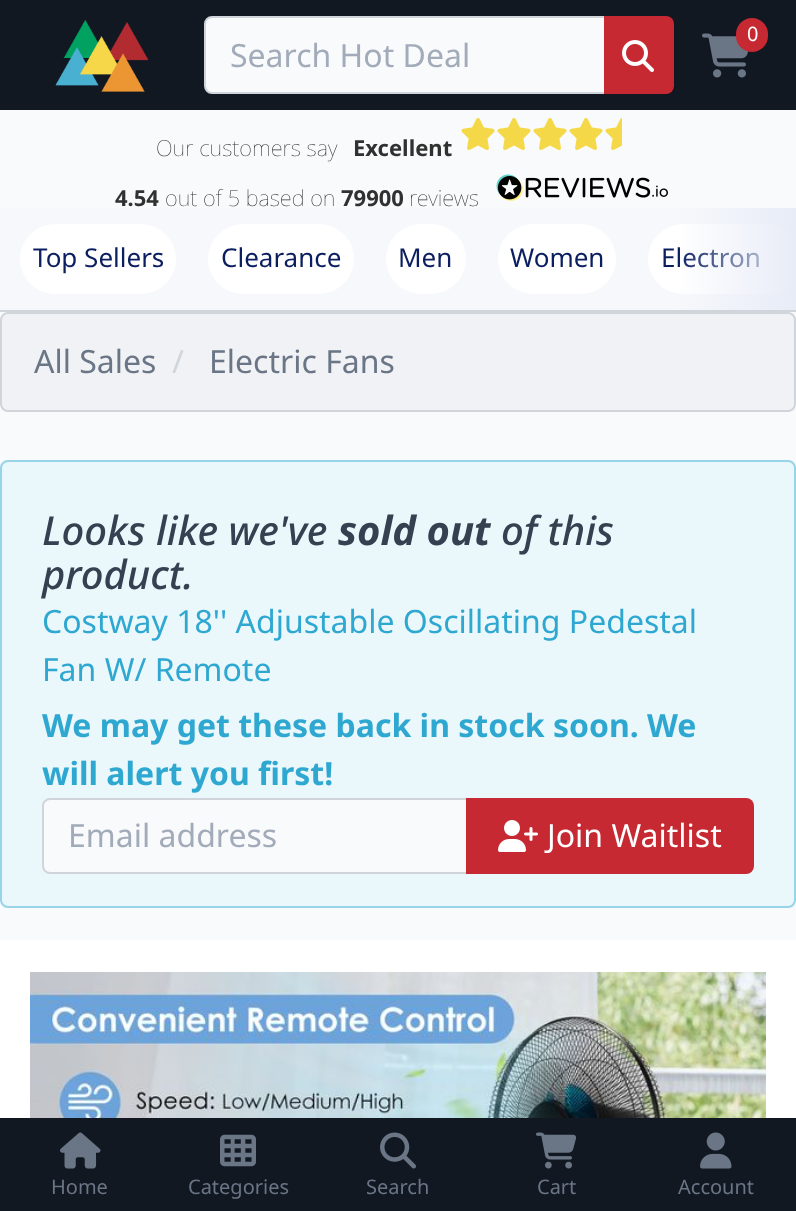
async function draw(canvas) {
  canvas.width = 796;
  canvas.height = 1211;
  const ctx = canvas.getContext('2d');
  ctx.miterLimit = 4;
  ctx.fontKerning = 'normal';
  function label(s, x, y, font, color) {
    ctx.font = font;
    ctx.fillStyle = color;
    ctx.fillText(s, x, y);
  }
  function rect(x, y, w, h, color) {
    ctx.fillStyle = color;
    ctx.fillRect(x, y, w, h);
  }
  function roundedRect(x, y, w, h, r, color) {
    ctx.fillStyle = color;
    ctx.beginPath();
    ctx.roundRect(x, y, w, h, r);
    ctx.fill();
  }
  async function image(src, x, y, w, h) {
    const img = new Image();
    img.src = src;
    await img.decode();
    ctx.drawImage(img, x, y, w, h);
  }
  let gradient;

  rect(0, 0, 796, 1211, '#f9fafb');
  rect(0, 0, 796, 110, '#111822');
  await image('assets/img1.png', 55, 19, 94, 73);
  await image('assets/img2.png', 702, 33, 47, 45);
  roundedRect(736, 18, 32, 34, 16, '#c62931');
  label('0', 747, 41, '20px Noto Sans', '#fff');
  ctx.fillStyle = '#f9fafb';
  ctx.beginPath();
  ctx.roundRect(205, 17, 412, 76, [7, 0, 0, 7]);
  ctx.fill();
  ctx.strokeStyle = '#d0d5dc';
  ctx.lineWidth = 2;
  ctx.stroke();
  label('Search Hot Deal', 230, 67, '32px Noto Sans', '#a2abb9');
  ctx.fillStyle = '#c62931';
  ctx.beginPath();
  ctx.roundRect(604, 16, 70, 78, [0, 8, 8, 0]);
  ctx.fill();
  await image('assets/img3.png', 622, 40, 32, 32);
  label('Our customers say', 156, 156, '100 22px Noto Sans', '#313131');
  label('Excellent', 353, 156, 'bold 22px Noto Sans', '#313131');
  await image('assets/img4.png', 461, 118, 34, 32);
  await image('assets/img4.png', 497, 118, 34, 32);
  await image('assets/img4.png', 533, 118, 34, 32);
  await image('assets/img4.png', 569, 118, 34, 32);
  await image('assets/img5.png', 605, 118, 17, 32);
  label('4.54', 115, 206, 'bold 22px Noto Sans', '#313131');
  label('out of 5 based on', 165, 206, '100 22px Noto Sans', '#313131');
  label('79900', 341, 206, 'bold 22px Noto Sans', '#313131');
  label('reviews', 409, 206, '100 22px Noto Sans', '#313131');
  await image('assets/img6.png', 496, 174, 172, 27);
  rect(0, 208, 795, 102, '#f6f8fb');
  rect(0, 310, 796, 2, '#d0d5dc');
  roundedRect(648, 224, 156, 70, 35, '#fff');
  label('Electron', 661, 267, '26px Noto Sans', '#0b1e60');
  gradient = ctx.createLinearGradient(796, 259, 676, 259);
  gradient.addColorStop(0, '#e8ecf7');
  gradient.addColorStop(1, '#e8ecf700');
  ctx.fillStyle = gradient;
  ctx.fillRect(679, 208, 117, 102);
  roundedRect(20, 224, 156, 70, 35, '#fff');
  label('Top Sellers', 33, 267, '26px Noto Sans', '#0b1e60');
  roundedRect(208, 224, 146, 70, 35, '#fff');
  label('Clearance', 221, 267, '26px Noto Sans', '#0b1e60');
  roundedRect(386, 224, 80, 70, 35, '#fff');
  label('Men', 398, 267, '26px Noto Sans', '#0b1e60');
  roundedRect(498, 224, 118, 70, 35, '#fff');
  label('Women', 510, 267, '26px Noto Sans', '#0b1e60');
  ctx.fillStyle = '#f0f2f5';
  ctx.beginPath();
  ctx.roundRect(1, 313, 794, 98, 7);
  ctx.fill();
  ctx.stroke();
  label('All Sales', 34, 373, '32px Noto Sans', '#6a7585');
  label('/', 172, 373, '32px Noto Sans', '#d0d5dc');
  label('Electric Fans', 209, 373, '32px Noto Sans', '#6a7585');
  ctx.fillStyle = '#eaf7fb';
  ctx.beginPath();
  ctx.roundRect(1, 461, 794, 446, 7);
  ctx.fill();
  ctx.strokeStyle = '#97d4e8';
  ctx.stroke();
  label('Looks like we\'ve', 42, 545, 'italic 500 40px Noto Sans', '#354050');
  label('sold out', 338, 545, 'italic bold 40px Noto Sans', '#354050');
  label('of this', 501, 545, 'italic 500 40px Noto Sans', '#354050');
  label('product.', 42, 589, 'italic 500 40px Noto Sans', '#354050');
  label('Costway 18\'\' Adjustable Oscillating Pedestal', 42, 633, '32px Noto Sans', '#2ea8d1');
  label('Fan W/ Remote', 42, 681, '32px Noto Sans', '#2ea8d1');
  label('We may get these back in stock soon. We', 42, 737, 'bold 32px Noto Sans', '#2ea8d1');
  label('will alert you first!', 42, 785, 'bold 32px Noto Sans', '#2ea8d1');
  ctx.fillStyle = '#f9fafb';
  ctx.beginPath();
  ctx.roundRect(43, 799, 424, 74, [7, 0, 0, 7]);
  ctx.fill();
  ctx.strokeStyle = '#d0d5dc';
  ctx.stroke();
  label('Email address', 68, 847, '32px Noto Sans', '#a2abb9');
  ctx.fillStyle = '#c62931';
  ctx.beginPath();
  ctx.roundRect(466, 798, 288, 76, [0, 8, 8, 0]);
  ctx.fill();
  await image('assets/img7.png', 498, 820, 40, 32);
  label('Join Waitlist', 547, 847, '32px Noto Sans', '#fff');
  rect(0, 940, 796, 178, '#fff');
  await image('assets/img8.png', 30, 972, 736, 146);
  rect(0, 1118, 796, 93, '#111822');
  await image('assets/img9.png', 60, 1132, 41, 37);
  label('Home', 51, 1194, '20px Noto Sans', '#6a7585');
  await image('assets/img10.png', 220, 1134, 36, 33);
  label('Categories', 188, 1194, '20px Noto Sans', '#6a7585');
  await image('assets/img11.png', 380, 1132, 36, 37);
  label('Search', 366, 1194, '20px Noto Sans', '#6a7585');
  await image('assets/img12.png', 536, 1132, 41, 37);
  label('Cart', 537, 1194, '20px Noto Sans', '#6a7585');
  await image('assets/img13.png', 700, 1132, 32, 37);
  label('Account', 678, 1194, '20px Noto Sans', '#6a7585');
}

draw(document.querySelector('canvas'));
